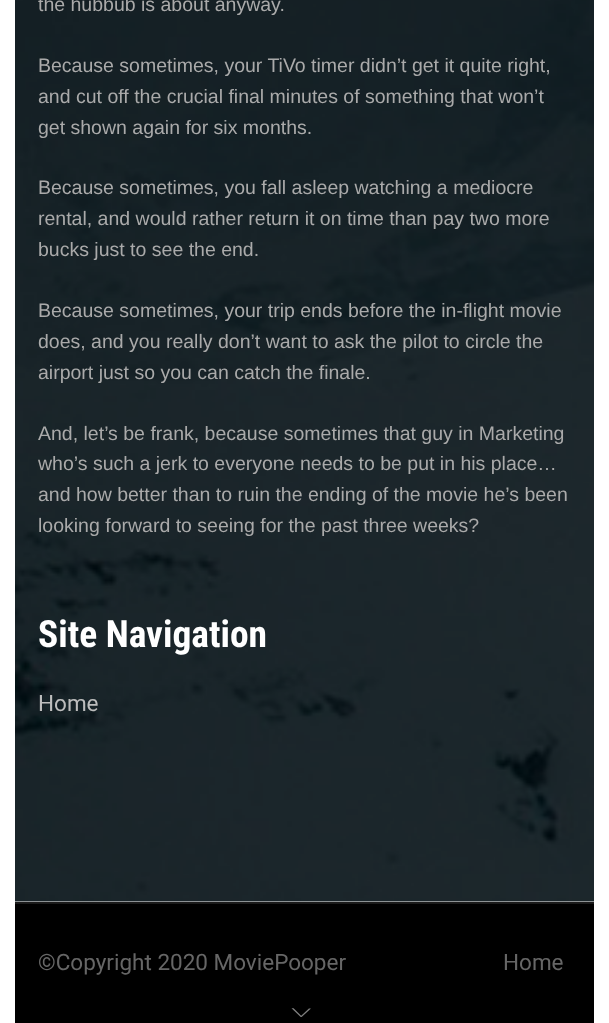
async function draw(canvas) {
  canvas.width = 609;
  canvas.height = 1023;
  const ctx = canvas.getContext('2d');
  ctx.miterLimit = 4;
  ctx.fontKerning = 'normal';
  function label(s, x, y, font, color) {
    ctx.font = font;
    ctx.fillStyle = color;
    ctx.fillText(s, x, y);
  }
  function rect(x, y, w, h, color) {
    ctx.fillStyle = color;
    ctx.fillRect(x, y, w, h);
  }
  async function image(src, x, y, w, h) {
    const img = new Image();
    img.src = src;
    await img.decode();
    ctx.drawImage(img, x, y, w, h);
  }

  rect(0, 0, 609, 1023, '#fff');
  await image('assets/img1.png', 15, 0, 579, 902);
  label('the hubbub is about anyway.', 38, 11, '19.5px Liberation Sans', '#aaa');
  label('Because sometimes, your TiVo timer didn’t get it quite right,', 38, 72, '19.5px Liberation Sans', '#aaa');
  label('and cut off the crucial final minutes of something that won’t', 38, 103, '19.5px Liberation Sans', '#aaa');
  label('get shown again for six months.', 38, 134, '19.5px Liberation Sans', '#aaa');
  label('Because sometimes, you fall asleep watching a mediocre', 38, 194, '19.5px Liberation Sans', '#aaa');
  label('rental, and would rather return it on time than pay two more', 38, 225, '19.5px Liberation Sans', '#aaa');
  label('bucks just to see the end.', 38, 256, '19.5px Liberation Sans', '#aaa');
  label('Because sometimes, your trip ends before the in-flight movie', 38, 317, '19.5px Liberation Sans', '#aaa');
  label('does, and you really don’t want to ask the pilot to circle the', 38, 348, '19.5px Liberation Sans', '#aaa');
  label('airport just so you can catch the finale.', 38, 379, '19.5px Liberation Sans', '#aaa');
  label('And, let’s be frank, because sometimes that guy in Marketing', 38, 440, '19.5px Liberation Sans', '#aaa');
  label('who’s such a jerk to everyone needs to be put in his place…', 38, 470, '19.5px Liberation Sans', '#aaa');
  label('and how better than to ruin the ending of the movie he’s been', 38, 501, '19.5px Liberation Sans', '#aaa');
  label('looking forward to seeing for the past three weeks?', 38, 532, '19.5px Liberation Sans', '#aaa');
  label('Site Navigation', 38, 647, 'bold 37.5px Roboto Condensed', '#fff');
  label('Home', 38, 711, '22.5px Roboto', '#bdbdbd');
  rect(15, 904, 579, 119, '#000');
  rect(15, 902, 579, 2, '#1a1a1a');
  label('©Copyright 2020 MoviePooper', 38, 970, '22.5px Roboto', '#666');
  label('Home', 503, 970, '22.5px Roboto', '#666');
  await image('assets/img2.png', 291, 1008, 20, 9);
}

draw(document.querySelector('canvas'));
